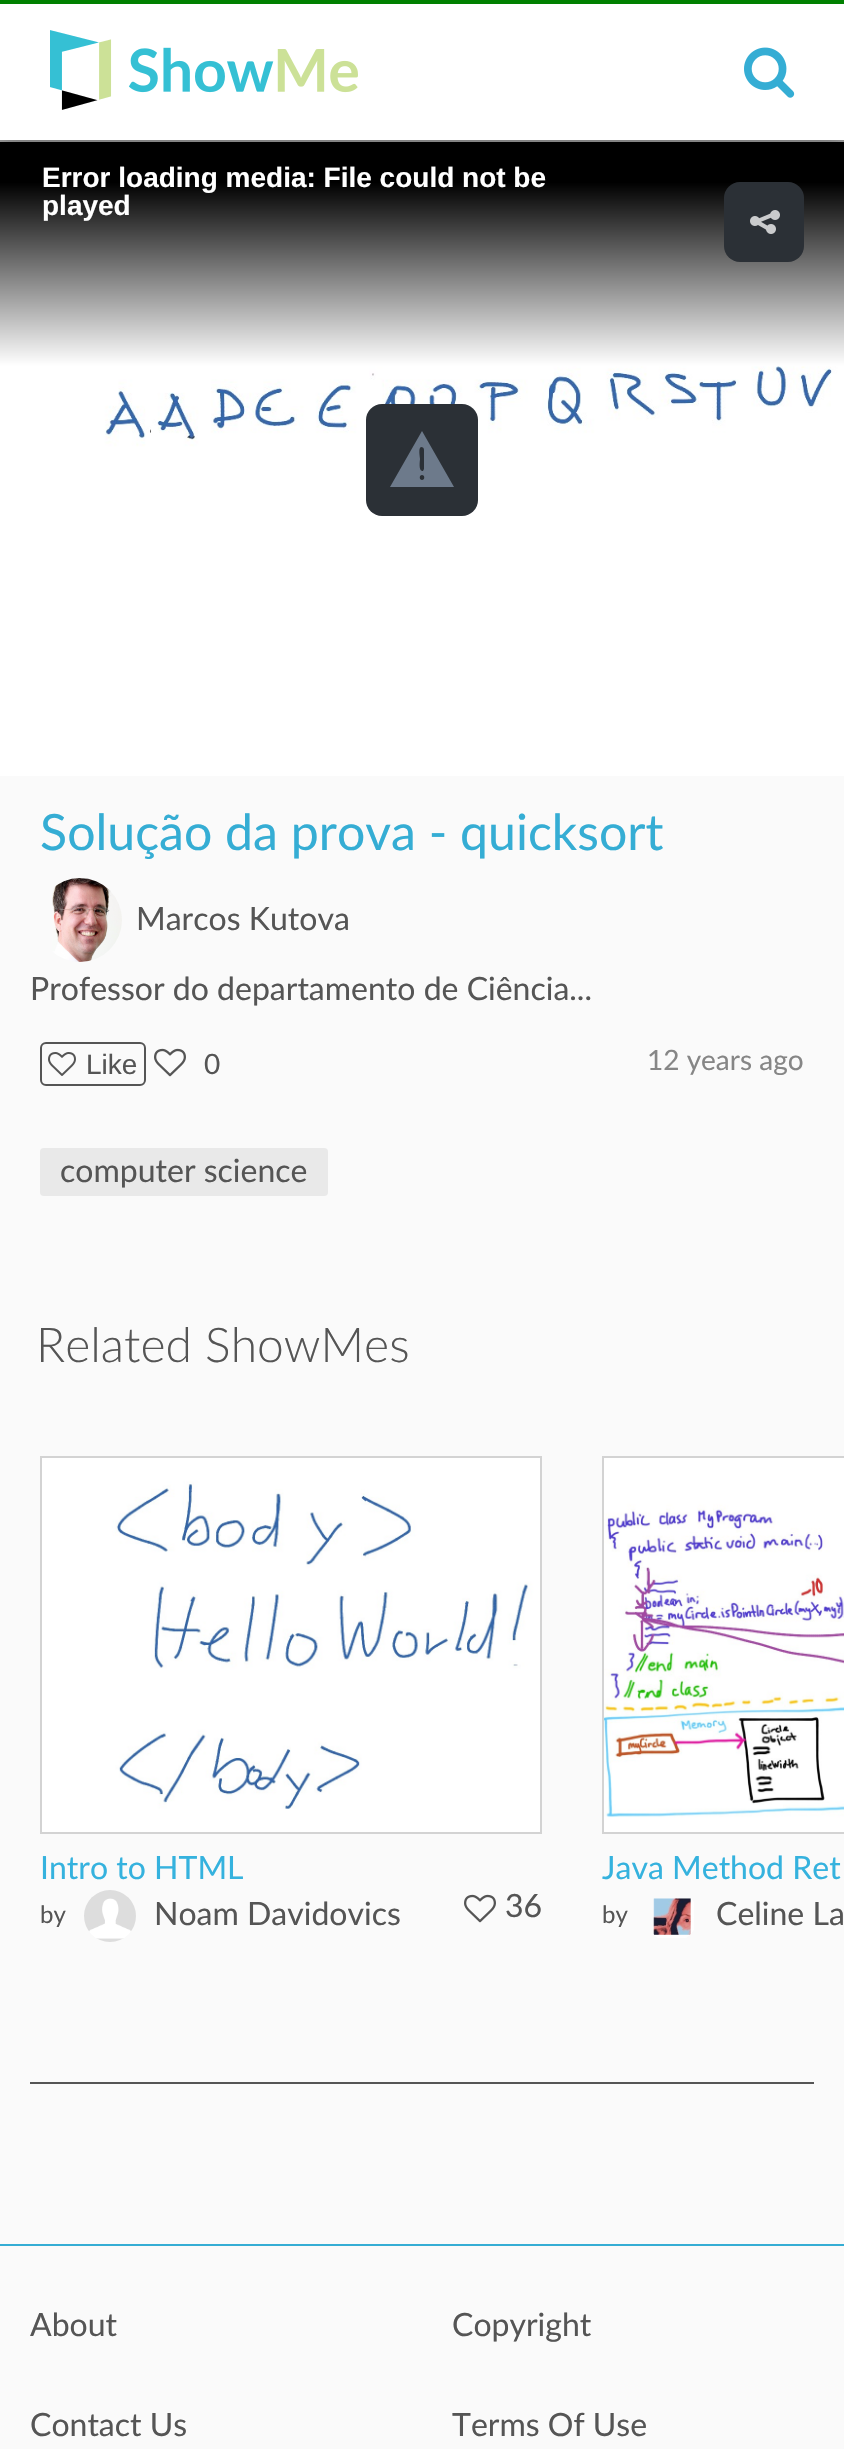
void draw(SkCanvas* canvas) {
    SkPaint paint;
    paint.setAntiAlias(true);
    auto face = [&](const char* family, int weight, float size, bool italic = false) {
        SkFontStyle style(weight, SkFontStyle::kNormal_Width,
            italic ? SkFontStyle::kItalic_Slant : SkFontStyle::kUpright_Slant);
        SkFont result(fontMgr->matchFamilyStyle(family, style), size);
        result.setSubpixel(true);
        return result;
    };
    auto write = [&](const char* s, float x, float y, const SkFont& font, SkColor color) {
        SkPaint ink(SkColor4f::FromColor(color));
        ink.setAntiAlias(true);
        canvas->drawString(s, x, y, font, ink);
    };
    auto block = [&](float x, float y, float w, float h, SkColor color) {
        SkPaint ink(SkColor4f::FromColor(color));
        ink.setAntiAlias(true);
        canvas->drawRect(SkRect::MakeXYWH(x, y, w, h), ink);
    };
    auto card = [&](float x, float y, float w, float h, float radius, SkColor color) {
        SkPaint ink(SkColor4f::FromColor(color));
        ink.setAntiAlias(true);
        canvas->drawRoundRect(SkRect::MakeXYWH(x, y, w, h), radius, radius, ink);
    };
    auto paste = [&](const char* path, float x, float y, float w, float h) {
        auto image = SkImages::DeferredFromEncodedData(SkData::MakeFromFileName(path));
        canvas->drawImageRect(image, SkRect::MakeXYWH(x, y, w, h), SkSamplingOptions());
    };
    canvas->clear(SkColorSetRGB(250, 250, 250));
    block(0, 140, 844, 2, SkColorSetRGB(162, 162, 162));
    paint.setColor(SkColorSetARGB(102, 0, 0, 0));
    paint.setMaskFilter(SkMaskFilter::MakeBlur(kNormal_SkBlurStyle, 10));
    canvas->drawRect(SkRect::MakeXYWH(0, 0, 844, 140), paint);
    paint.setMaskFilter(nullptr);
    block(0, 0, 844, 4, SkColorSetRGB(0, 128, 0));
    block(0, 4, 844, 136, SK_ColorWHITE);
    paste("pic1.png", 50, 30, 308, 80);
    paste("pic2.png", 744, 47, 51, 51);
    {
        const SkColor colors[] = {SK_ColorBLACK, SK_ColorBLACK, SK_ColorWHITE};
        const float stops[] = {0, 0.18f, 1};
        const SkPoint ends[] = {{422, 142}, {422, 366}};
        paint.setShader(SkGradientShader::MakeLinear(ends, colors, stops, 3, SkTileMode::kClamp));
        paint.setAlpha(255);
    }
    canvas->drawRect(SkRect::MakeXYWH(0, 142, 844, 224), paint);
    auto kFont1 = face("Liberation Sans", 700, 28);
    write("Error loading media: File could not be", 42, 187, kFont1, SK_ColorWHITE);
    write("played", 42, 215, kFont1, SK_ColorWHITE);
    card(724, 182, 80, 80, 16, SkColorSetRGB(43, 48, 54));
    paste("pic3.png", 750, 210, 30, 24);
    paste("pic4.png", 0, 366, 844, 410);
    card(366, 404, 112, 112, 16, SkColorSetRGB(43, 48, 54));
    paint.setShader(nullptr);
    paint.setColor(SkColorSetRGB(109, 122, 139));
    canvas->drawPath(SkPathBuilder().moveTo(390, 487).lineTo(422, 431).lineTo(454, 487).close().moveTo(422, 480).cubicTo(425, 480, 425, 475, 422, 475).cubicTo(419, 475, 419, 480, 422, 480).close().moveTo(424, 450).cubicTo(424, 448, 423, 447, 421, 447).cubicTo(418, 448, 420, 457, 420, 459).cubicTo(420, 460, 418, 472, 423, 471).lineTo(424, 469).close().detach(), paint);
    auto kFont2 = face("Lato", 400, 50);
    write("Solução da prova - quicksort", 40, 850, kFont2, SkColorSetRGB(53, 173, 212));
    paste("pic5.png", 52, 878, 70, 84);
    auto kFont3 = face("Lato", 400, 32);
    write("Marcos Kutova", 136, 930, kFont3, SkColorSetRGB(85, 85, 85));
    write("Professor do departamento de Ciência...", 30, 1000, kFont3, SkColorSetRGB(85, 85, 85));
    paint.setStyle(SkPaint::kStroke_Style);
    paint.setStrokeWidth(2);
    paint.setColor(SkColorSetRGB(85, 85, 85));
    canvas->drawRoundRect(SkRect::MakeXYWH(41, 1043, 104, 42), 5, 5, paint);
    paste("pic6.png", 48, 1052, 28, 24);
    auto kFont4 = face("Liberation Sans", 400, 28);
    write("Like", 86, 1074, kFont4, SkColorSetRGB(85, 85, 85));
    paste("pic7.png", 154, 1048, 32, 29);
    auto kFont5 = face("Lato", 400, 28);
    write("0", 204, 1074, kFont5, SkColorSetRGB(85, 85, 85));
    write("12 years ago", 647, 1070, kFont5, SkColorSetRGB(134, 134, 134));
    card(40, 1148, 288, 48, 4, SkColorSetRGB(233, 233, 233));
    write("computer science", 60, 1182, kFont3, SkColorSetRGB(85, 85, 85));
    auto kFont6 = face("Lato", 300, 48);
    write("Related ShowMes", 36, 1362, kFont6, SkColorSetRGB(85, 85, 85));
    paint.setColor(SkColorSetRGB(211, 211, 211));
    canvas->drawRect(SkRect::MakeXYWH(41, 1457, 500, 376), paint);
    paste("pic8.png", 42, 1458, 498, 374);
    write("Intro to HTML", 40, 1879, kFont3, SkColorSetRGB(53, 178, 222));
    auto kFont7 = face("Lato", 400, 24);
    write("by", 40, 1923, kFont7, SkColorSetRGB(85, 85, 85));
    paste("pic9.png", 84, 1890, 52, 52);
    write("Noam Davidovics", 154, 1925, kFont3, SkColorSetRGB(85, 85, 85));
    paste("pic7.png", 464, 1894, 32, 29);
    write("36", 505, 1917, kFont3, SkColorSetRGB(85, 85, 85));
    canvas->drawRect(SkRect::MakeXYWH(603, 1457, 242, 376), paint);
    paste("pic10.png", 604, 1458, 240, 374);
    write("Java Method Ret", 602, 1879, kFont3, SkColorSetRGB(53, 178, 222));
    write("by", 602, 1923, kFont7, SkColorSetRGB(85, 85, 85));
    paste("pic11.png", 653, 1898, 41, 40);
    write("Celine La", 716, 1925, kFont3, SkColorSetRGB(85, 85, 85));
    block(30, 2082, 784, 2, SkColorSetRGB(85, 85, 85));
    block(0, 2244, 844, 2, SkColorSetRGB(53, 173, 212));
    write("About", 30, 2336, kFont3, SkColorSetRGB(85, 85, 85));
    write("Contact Us", 30, 2436, kFont3, SkColorSetRGB(85, 85, 85));
    write("Copyright", 452, 2336, kFont3, SkColorSetRGB(85, 85, 85));
    write("Terms Of Use", 452, 2436, kFont3, SkColorSetRGB(85, 85, 85));
}
